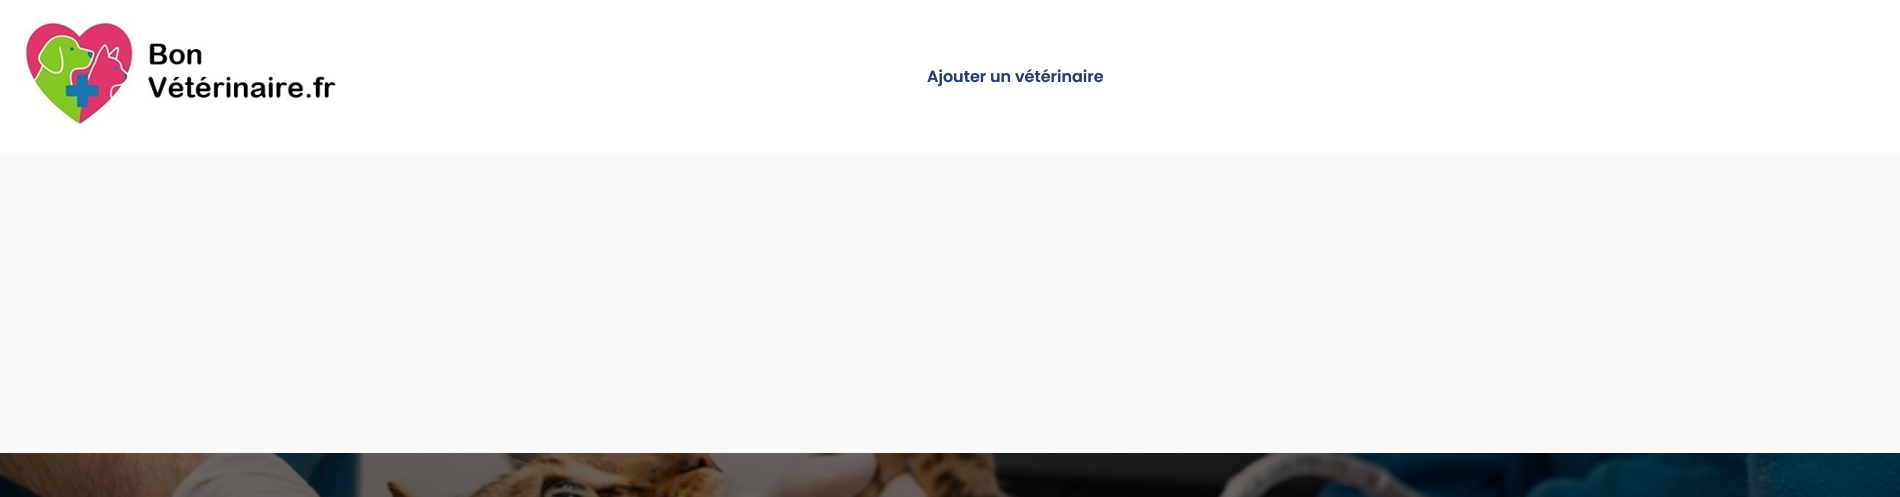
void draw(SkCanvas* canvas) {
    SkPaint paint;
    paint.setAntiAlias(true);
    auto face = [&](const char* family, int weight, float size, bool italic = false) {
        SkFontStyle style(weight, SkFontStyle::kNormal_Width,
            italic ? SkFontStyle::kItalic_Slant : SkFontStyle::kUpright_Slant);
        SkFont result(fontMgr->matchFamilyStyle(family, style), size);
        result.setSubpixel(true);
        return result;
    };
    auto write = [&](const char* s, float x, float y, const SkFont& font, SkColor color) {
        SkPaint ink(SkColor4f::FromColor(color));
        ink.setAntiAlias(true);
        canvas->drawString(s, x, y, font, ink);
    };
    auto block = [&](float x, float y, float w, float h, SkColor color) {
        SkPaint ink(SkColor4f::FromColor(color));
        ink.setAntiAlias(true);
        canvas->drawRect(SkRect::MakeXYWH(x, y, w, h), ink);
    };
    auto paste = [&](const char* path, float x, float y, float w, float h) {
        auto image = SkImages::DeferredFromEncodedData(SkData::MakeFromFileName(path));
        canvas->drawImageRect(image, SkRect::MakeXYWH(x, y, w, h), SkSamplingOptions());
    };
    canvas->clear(SkColorSetRGB(249, 249, 249));
    block(0, 0, 1900, 153, SK_ColorWHITE);
    paste("pic1.png", 20, 15, 316, 114);
    auto kFont1 = face("Poppins", 600, 16);
    write("Ajouter un vétérinaire", 927, 82, kFont1, SkColorSetRGB(42, 55, 117));
    paste("pic2.png", 0, 453, 1900, 44);
}
